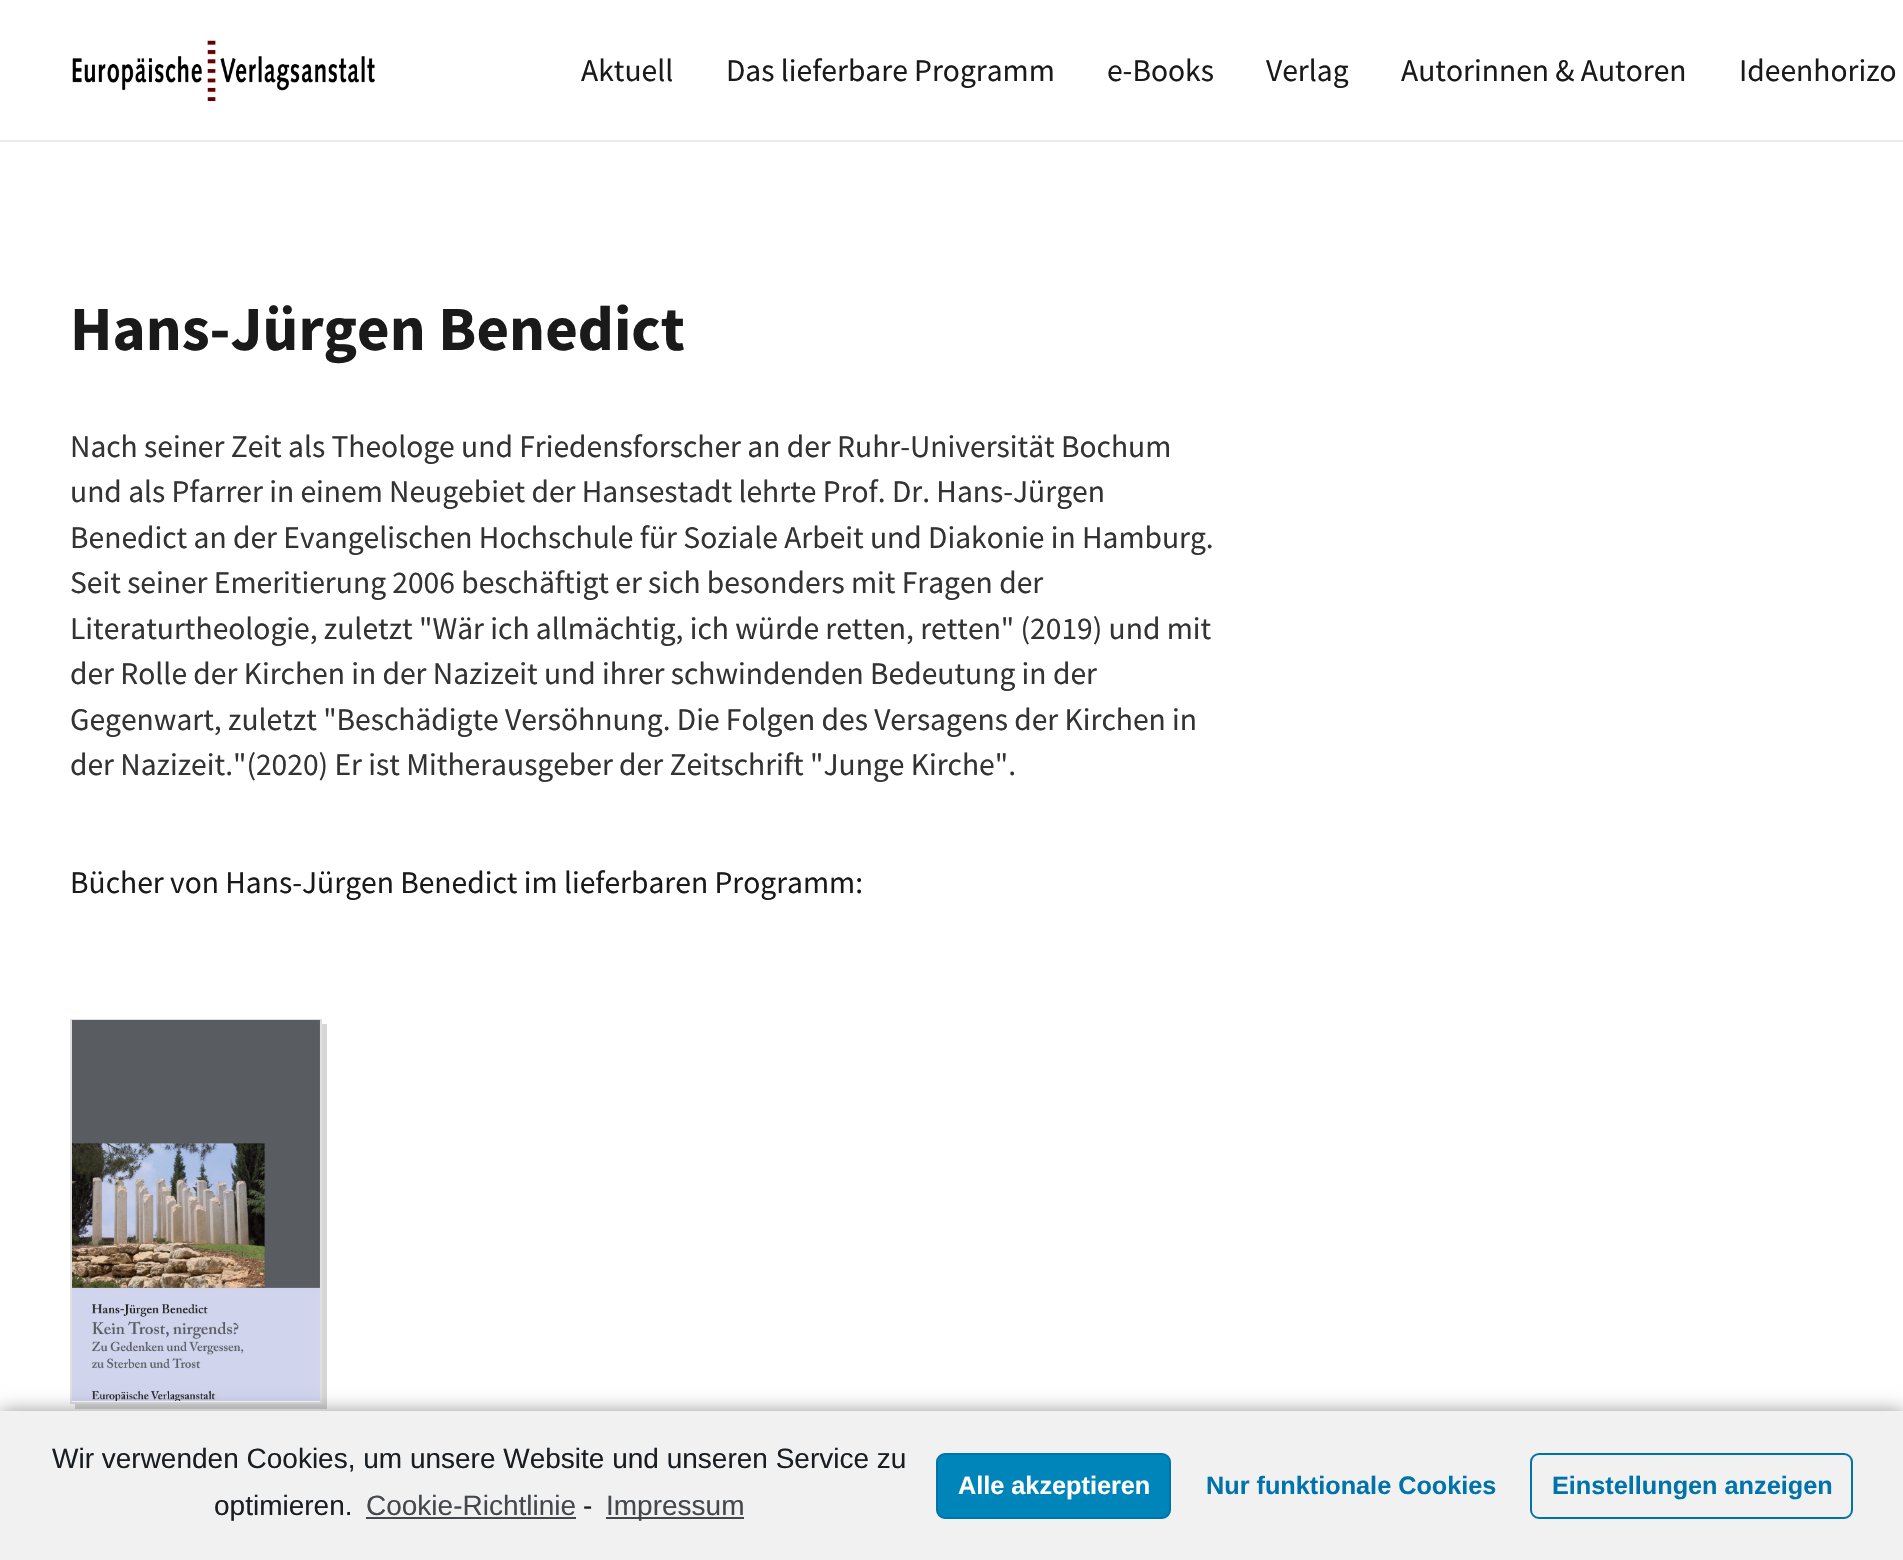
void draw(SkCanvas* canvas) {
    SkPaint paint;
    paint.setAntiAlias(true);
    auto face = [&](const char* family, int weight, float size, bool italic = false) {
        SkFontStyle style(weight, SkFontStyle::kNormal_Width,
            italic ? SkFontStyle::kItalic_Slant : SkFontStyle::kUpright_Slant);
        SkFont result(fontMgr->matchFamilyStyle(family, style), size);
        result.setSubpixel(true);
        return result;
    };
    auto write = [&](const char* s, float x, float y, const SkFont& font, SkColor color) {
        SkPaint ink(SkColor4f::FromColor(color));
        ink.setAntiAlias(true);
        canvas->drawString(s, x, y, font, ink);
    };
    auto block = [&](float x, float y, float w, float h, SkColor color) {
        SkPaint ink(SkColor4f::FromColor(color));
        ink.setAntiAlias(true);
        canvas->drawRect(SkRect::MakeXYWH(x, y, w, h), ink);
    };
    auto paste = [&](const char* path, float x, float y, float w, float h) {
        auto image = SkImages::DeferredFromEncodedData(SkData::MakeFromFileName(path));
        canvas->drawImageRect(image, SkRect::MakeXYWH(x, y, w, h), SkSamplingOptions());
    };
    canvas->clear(SK_ColorWHITE);
    block(0, 140, 1903, 2, SkColorSetRGB(235, 235, 235));
    paste("pic1.png", 72, 40, 303, 61);
    auto kFont1 = face("Source Sans Pro", 400, 31.5f);
    write("Aktuell", 581, 81, kFont1, SkColorSetRGB(26, 26, 26));
    write("Das lieferbare Programm", 726, 81, kFont1, SkColorSetRGB(26, 26, 26));
    write("e-Books", 1107, 81, kFont1, SkColorSetRGB(26, 26, 26));
    write("Verlag", 1266, 81, kFont1, SkColorSetRGB(26, 26, 26));
    write("Autorinnen & Autoren", 1401, 81, kFont1, SkColorSetRGB(26, 26, 26));
    write("Ideenhorizo", 1739, 81, kFont1, SkColorSetRGB(26, 26, 26));
    auto kFont2 = face("Source Sans Pro", 700, 63);
    write("Hans-Jürgen Benedict", 70, 350, kFont2, SkColorSetRGB(26, 26, 26));
    write("Nach seiner Zeit als Theologe und Friedensforscher an der Ruhr-Universität Bochum", 70, 457, kFont1, SkColorSetRGB(51, 51, 51));
    write("und als Pfarrer in einem Neugebiet der Hansestadt lehrte Prof. Dr. Hans-Jürgen", 70, 502, kFont1, SkColorSetRGB(51, 51, 51));
    write("Benedict an der Evangelischen Hochschule für Soziale Arbeit und Diakonie in Hamburg.", 70, 548, kFont1, SkColorSetRGB(51, 51, 51));
    write("Seit seiner Emeritierung 2006 beschäftigt er sich besonders mit Fragen der", 70, 593, kFont1, SkColorSetRGB(51, 51, 51));
    write("Literaturtheologie, zuletzt \"Wär ich allmächtig, ich würde retten, retten\" (2019) und mit", 70, 639, kFont1, SkColorSetRGB(51, 51, 51));
    write("der Rolle der Kirchen in der Nazizeit und ihrer schwindenden Bedeutung in der", 70, 684, kFont1, SkColorSetRGB(51, 51, 51));
    write("Gegenwart, zuletzt \"Beschädigte Versöhnung. Die Folgen des Versagens der Kirchen in", 70, 730, kFont1, SkColorSetRGB(51, 51, 51));
    write("der Nazizeit.\"(2020) Er ist Mitherausgeber der Zeitschrift \"Junge Kirche\".", 70, 775, kFont1, SkColorSetRGB(51, 51, 51));
    write("Bücher von Hans-Jürgen Benedict im lieferbaren Programm:", 70, 893, kFont1, SkColorSetRGB(26, 26, 26));
    paint.setColor(SkColorSetRGB(214, 214, 214));
    canvas->drawPath(SkPathBuilder().moveTo(75, 1404).lineTo(75, 1409).lineTo(327, 1409).lineTo(327, 1024).lineTo(322, 1024).lineTo(322, 1404).close().detach(), paint);
    paint.setStyle(SkPaint::kStroke_Style);
    paint.setStrokeWidth(2);
    paint.setColor(SkColorSetRGB(224, 224, 224));
    canvas->drawRect(SkRect::MakeXYWH(71, 1020, 250, 383), paint);
    paste("pic2.png", 72, 1020, 248, 381);
    paint.setStyle(SkPaint::kFill_Style);
    paint.setColor(SkColorSetARGB(102, 0, 0, 0));
    paint.setMaskFilter(SkMaskFilter::MakeBlur(kNormal_SkBlurStyle, 9));
    canvas->drawRect(SkRect::MakeXYWH(0, 1411, 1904, 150), paint);
    paint.setMaskFilter(nullptr);
    block(0, 1411, 1903, 149, SkColorSetRGB(241, 241, 241));
    auto kFont3 = face("Liberation Sans", 400, 28);
    write("Wir verwenden Cookies, um unsere Website und unseren Service zu", 52, 1468, kFont3, SkColorSetRGB(25, 30, 35));
    write("optimieren.", 214, 1515, kFont3, SkColorSetRGB(25, 30, 35));
    write("Cookie-Richtlinie", 366, 1515, kFont3, SkColorSetRGB(68, 72, 76));
    block(366, 1517, 210, 2, SkColorSetRGB(68, 72, 76));
    write("-", 583, 1515, kFont3, SkColorSetRGB(25, 30, 35));
    block(606, 1517, 138, 2, SkColorSetRGB(68, 72, 76));
    write("Impressum", 606, 1515, kFont3, SkColorSetRGB(68, 72, 76));
    paint.setColor(SkColorSetRGB(0, 133, 186));
    canvas->drawRoundRect(SkRect::MakeXYWH(937, 1454, 233, 64), 8, 8, paint);
    paint.setStyle(SkPaint::kStroke_Style);
    paint.setColor(SkColorSetRGB(0, 115, 170));
    canvas->drawRoundRect(SkRect::MakeXYWH(937, 1454, 233, 64), 8, 8, paint);
    auto kFont4 = face("Liberation Sans", 700, 25.25f);
    write("Alle akzeptieren", 958, 1494, kFont4, SK_ColorWHITE);
    write("Nur funktionale Cookies", 1206, 1494, kFont4, SkColorSetRGB(0, 115, 170));
    canvas->drawRoundRect(SkRect::MakeXYWH(1531, 1454, 321, 64), 8, 8, paint);
    write("Einstellungen anzeigen", 1552, 1494, kFont4, SkColorSetRGB(0, 115, 170));
}
